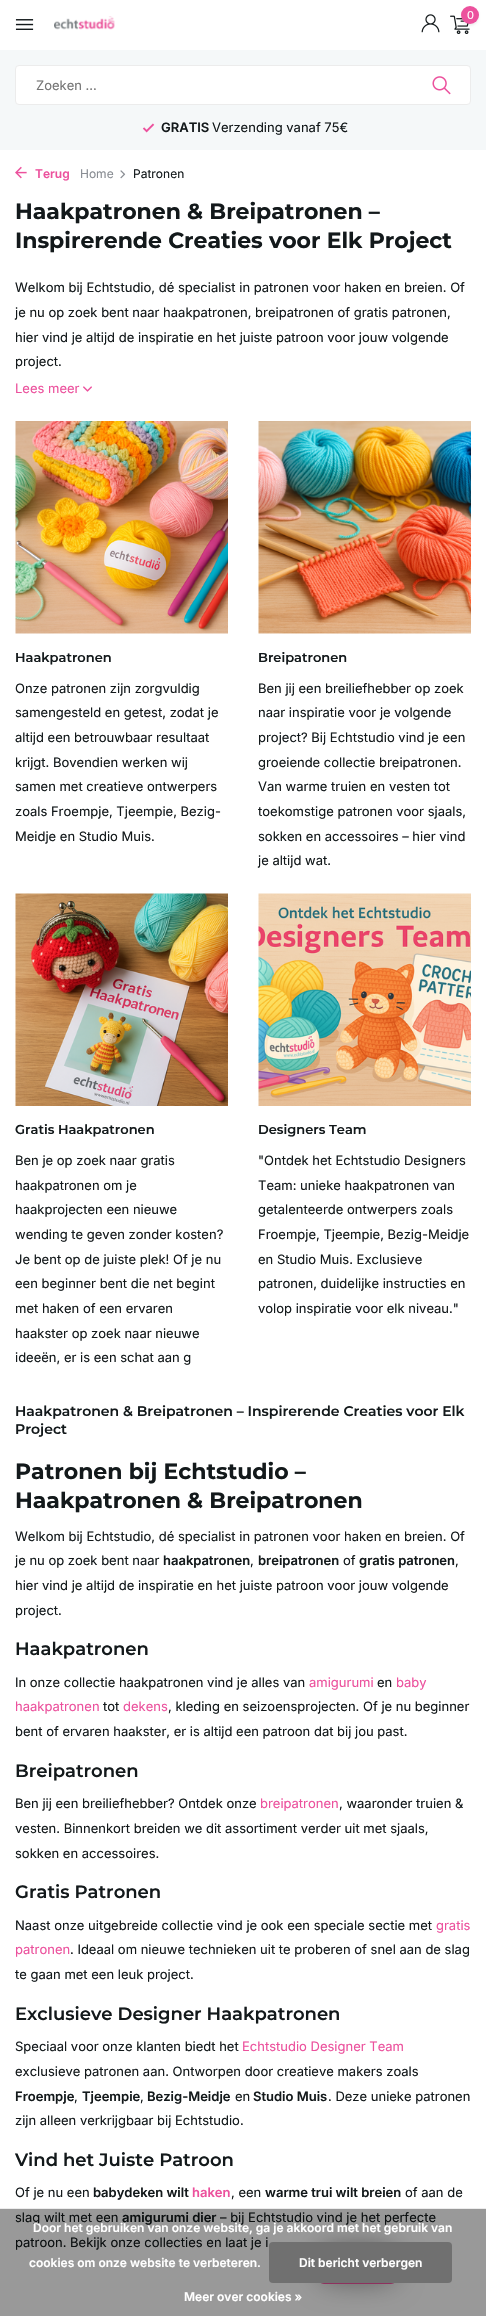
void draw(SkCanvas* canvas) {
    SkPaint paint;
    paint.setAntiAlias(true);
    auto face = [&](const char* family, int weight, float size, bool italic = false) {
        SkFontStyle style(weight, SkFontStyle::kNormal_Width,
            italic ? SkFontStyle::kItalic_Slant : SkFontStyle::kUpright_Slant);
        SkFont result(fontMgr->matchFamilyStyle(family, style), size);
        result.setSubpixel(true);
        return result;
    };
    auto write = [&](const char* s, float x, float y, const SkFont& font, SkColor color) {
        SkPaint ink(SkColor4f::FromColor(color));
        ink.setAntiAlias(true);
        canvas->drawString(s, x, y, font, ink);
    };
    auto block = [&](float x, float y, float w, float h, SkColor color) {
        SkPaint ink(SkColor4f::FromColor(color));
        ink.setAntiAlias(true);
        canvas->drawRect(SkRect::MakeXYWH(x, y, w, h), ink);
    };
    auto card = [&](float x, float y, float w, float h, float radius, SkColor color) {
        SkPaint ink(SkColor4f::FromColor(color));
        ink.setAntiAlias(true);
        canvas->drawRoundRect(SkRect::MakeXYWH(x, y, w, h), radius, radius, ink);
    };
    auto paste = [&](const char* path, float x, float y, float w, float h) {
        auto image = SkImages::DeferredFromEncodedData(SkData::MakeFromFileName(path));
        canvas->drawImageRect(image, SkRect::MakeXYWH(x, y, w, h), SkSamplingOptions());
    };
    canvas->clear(SK_ColorWHITE);
    block(0, 2209, 486, 107, SkColorSetRGB(153, 153, 153));
    paste("pic1.png", 421, 14, 19, 19);
    paste("pic2.png", 450, 15, 20, 19);
    paint.setColor(SkColorSetARGB(15, 0, 0, 0));
    paint.setMaskFilter(SkMaskFilter::MakeBlur(kNormal_SkBlurStyle, 1));
    canvas->drawRoundRect(SkRect::MakeXYWH(461, 8, 18, 18), 9, 9, paint);
    paint.setMaskFilter(nullptr);
    paint.setColor(SkColorSetRGB(236, 81, 157));
    canvas->drawCircle(470, 15, 9, paint);
    auto kFont1 = face("Inter", 400, 11);
    write("0", 467, 19, kFont1, SK_ColorWHITE);
    paste("pic3.png", 15, 19, 19, 11);
    paste("pic4.png", 54, 16, 61, 14);
    block(0, 50, 486, 100, SkColorSetRGB(245, 248, 249));
    paint.setColor(SK_ColorWHITE);
    canvas->drawRoundRect(SkRect::MakeXYWH(15.5f, 65.5f, 455, 39), 3.5f, 3.5f, paint);
    paint.setStyle(SkPaint::kStroke_Style);
    paint.setStrokeWidth(1);
    paint.setColor(SkColorSetRGB(236, 236, 236));
    canvas->drawRoundRect(SkRect::MakeXYWH(15.5f, 65.5f, 455, 39), 3.5f, 3.5f, paint);
    auto kFont2 = face("Inter", 400, 13);
    write("Zoeken ...", 36, 90, kFont2, SkColorSetRGB(117, 117, 117));
    paste("pic5.png", 432, 76, 19, 19);
    paste("pic6.png", 142, 123, 13, 10);
    auto kFont3 = face("Inter", 600, 13);
    write("GRATIS", 161, 132, kFont3, SkColorSetRGB(19, 25, 27));
    write("Verzending vanaf 75€", 212, 132, kFont2, SkColorSetRGB(19, 25, 27));
    paste("pic7.png", 15, 166, 12, 13);
    auto kFont4 = face("Inter", 600, 12);
    write("Terug", 35, 178, kFont4, SkColorSetRGB(236, 81, 157));
    auto kFont5 = face("Inter", 400, 12);
    write("Home", 80, 178, kFont5, SkColorSetRGB(137, 141, 147));
    paste("pic8.png", 120, 170, 6, 9);
    write("Patronen", 133, 178, kFont5, SkColorSetRGB(19, 25, 27));
    auto kFont6 = face("Montserrat", 700, 22);
    write("Haakpatronen & Breipatronen –", 15, 219, kFont6, SkColorSetRGB(19, 25, 27));
    write("Inspirerende Creaties voor Elk Project", 15, 248, kFont6, SkColorSetRGB(19, 25, 27));
    write("Welkom bij Echtstudio, dé specialist in patronen voor haken en breien. Of", 15, 292, kFont2, SkColorSetRGB(19, 25, 27));
    write("je nu op zoek bent naar haakpatronen, breipatronen of gratis patronen,", 15, 317, kFont2, SkColorSetRGB(19, 25, 27));
    write("hier vind je altijd de inspiratie en het juiste patroon voor jouw volgende", 15, 342, kFont2, SkColorSetRGB(19, 25, 27));
    write("project.", 15, 366, kFont2, SkColorSetRGB(19, 25, 27));
    write("Lees meer", 15, 393, kFont2, SkColorSetRGB(236, 81, 157));
    paste("pic9.png", 83, 386, 9, 6);
    paste("pic10.png", 15, 421, 213, 213);
    auto kFont7 = face("Montserrat", 600, 13);
    write("Haakpatronen", 15, 662, kFont7, SkColorSetRGB(19, 25, 27));
    write("Onze patronen zijn zorgvuldig", 15, 693, kFont2, SkColorSetRGB(19, 25, 27));
    write("samengesteld en getest, zodat je", 15, 717, kFont2, SkColorSetRGB(19, 25, 27));
    write("altijd een betrouwbaar resultaat", 15, 742, kFont2, SkColorSetRGB(19, 25, 27));
    write("krijgt. Bovendien werken wij", 15, 767, kFont2, SkColorSetRGB(19, 25, 27));
    write("samen met creatieve ontwerpers", 15, 791, kFont2, SkColorSetRGB(19, 25, 27));
    write("zoals Froempje, Tjeempie, Bezig-", 15, 816, kFont2, SkColorSetRGB(19, 25, 27));
    write("Meidje en Studio Muis.", 15, 841, kFont2, SkColorSetRGB(19, 25, 27));
    paste("pic11.png", 258, 421, 213, 213);
    write("Breipatronen", 258, 662, kFont7, SkColorSetRGB(19, 25, 27));
    write("Ben jij een breiliefhebber op zoek", 258, 693, kFont2, SkColorSetRGB(19, 25, 27));
    write("naar inspiratie voor je volgende", 258, 717, kFont2, SkColorSetRGB(19, 25, 27));
    write("project? Bij Echtstudio vind je een", 258, 742, kFont2, SkColorSetRGB(19, 25, 27));
    write("groeiende collectie breipatronen.", 258, 767, kFont2, SkColorSetRGB(19, 25, 27));
    write("Van warme truien en vesten tot", 258, 791, kFont2, SkColorSetRGB(19, 25, 27));
    write("toekomstige patronen voor sjaals,", 258, 816, kFont2, SkColorSetRGB(19, 25, 27));
    write("sokken en accessoires – hier vind", 258, 841, kFont2, SkColorSetRGB(19, 25, 27));
    write("je altijd wat.", 258, 865, kFont2, SkColorSetRGB(19, 25, 27));
    paste("pic12.png", 15, 893, 213, 213);
    write("Gratis Haakpatronen", 15, 1134, kFont7, SkColorSetRGB(19, 25, 27));
    write("Ben je op zoek naar gratis", 15, 1165, kFont2, SkColorSetRGB(19, 25, 27));
    write("haakpatronen om je", 15, 1190, kFont2, SkColorSetRGB(19, 25, 27));
    write("haakprojecten een nieuwe", 15, 1214, kFont2, SkColorSetRGB(19, 25, 27));
    write("wending te geven zonder kosten?", 15, 1239, kFont2, SkColorSetRGB(19, 25, 27));
    write("Je bent op de juiste plek! Of je nu", 15, 1264, kFont2, SkColorSetRGB(19, 25, 27));
    write("een beginner bent die net begint", 15, 1288, kFont2, SkColorSetRGB(19, 25, 27));
    write("met haken of een ervaren", 15, 1313, kFont2, SkColorSetRGB(19, 25, 27));
    write("haakster op zoek naar nieuwe", 15, 1338, kFont2, SkColorSetRGB(19, 25, 27));
    write("ideeën, er is een schat aan g", 15, 1362, kFont2, SkColorSetRGB(19, 25, 27));
    paste("pic13.png", 258, 893, 213, 213);
    write("Designers Team", 258, 1134, kFont7, SkColorSetRGB(19, 25, 27));
    write("\"Ontdek het Echtstudio Designers", 258, 1165, kFont2, SkColorSetRGB(19, 25, 27));
    write("Team: unieke haakpatronen van", 258, 1190, kFont2, SkColorSetRGB(19, 25, 27));
    write("getalenteerde ontwerpers zoals", 258, 1214, kFont2, SkColorSetRGB(19, 25, 27));
    write("Froempje, Tjeempie, Bezig-Meidje", 258, 1239, kFont2, SkColorSetRGB(19, 25, 27));
    write("en Studio Muis. Exclusieve", 258, 1264, kFont2, SkColorSetRGB(19, 25, 27));
    write("patronen, duidelijke instructies en", 258, 1288, kFont2, SkColorSetRGB(19, 25, 27));
    write("volop inspiratie voor elk niveau.\"", 258, 1313, kFont2, SkColorSetRGB(19, 25, 27));
    auto kFont8 = face("Montserrat", 600, 14);
    write("Haakpatronen & Breipatronen – Inspirerende Creaties voor Elk", 15, 1416, kFont8, SkColorSetRGB(19, 25, 27));
    write("Project", 15, 1434, kFont8, SkColorSetRGB(19, 25, 27));
    write("Patronen bij Echtstudio –", 15, 1479, kFont6, SkColorSetRGB(19, 25, 27));
    write("Haakpatronen & Breipatronen", 15, 1508, kFont6, SkColorSetRGB(19, 25, 27));
    write("Welkom bij Echtstudio, dé specialist in patronen voor haken en breien. Of", 15, 1541, kFont2, SkColorSetRGB(19, 25, 27));
    write("je nu op zoek bent naar", 15, 1565, kFont2, SkColorSetRGB(19, 25, 27));
    write("haakpatronen", 163, 1565, kFont3, SkColorSetRGB(19, 25, 27));
    write(",", 250, 1565, kFont2, SkColorSetRGB(19, 25, 27));
    write("breipatronen", 258, 1565, kFont3, SkColorSetRGB(19, 25, 27));
    write("of", 343, 1565, kFont2, SkColorSetRGB(19, 25, 27));
    write("gratis patronen", 359, 1565, kFont3, SkColorSetRGB(19, 25, 27));
    write(",", 455, 1565, kFont2, SkColorSetRGB(19, 25, 27));
    write("hier vind je altijd de inspiratie en het juiste patroon voor jouw volgende", 15, 1590, kFont2, SkColorSetRGB(19, 25, 27));
    write("project.", 15, 1615, kFont2, SkColorSetRGB(19, 25, 27));
    auto kFont9 = face("Montserrat", 600, 18);
    write("Haakpatronen", 15, 1655, kFont9, SkColorSetRGB(19, 25, 27));
    write("In onze collectie haakpatronen vind je alles van", 15, 1687, kFont2, SkColorSetRGB(19, 25, 27));
    write("amigurumi", 309, 1687, kFont2, SkColorSetRGB(236, 81, 157));
    write("en", 377, 1687, kFont2, SkColorSetRGB(19, 25, 27));
    write("baby", 396, 1687, kFont2, SkColorSetRGB(236, 81, 157));
    write("haakpatronen", 15, 1711, kFont2, SkColorSetRGB(236, 81, 157));
    write("tot", 103, 1711, kFont2, SkColorSetRGB(19, 25, 27));
    write("dekens", 123, 1711, kFont2, SkColorSetRGB(236, 81, 157));
    write(", kleding en seizoensprojecten. Of je nu beginner", 168, 1711, kFont2, SkColorSetRGB(19, 25, 27));
    write("bent of ervaren haakster, er is altijd een patroon dat bij jou past.", 15, 1736, kFont2, SkColorSetRGB(19, 25, 27));
    write("Breipatronen", 15, 1777, kFont9, SkColorSetRGB(19, 25, 27));
    write("Ben jij een breiliefhebber? Ontdek onze", 15, 1808, kFont2, SkColorSetRGB(19, 25, 27));
    write("breipatronen", 260, 1808, kFont2, SkColorSetRGB(236, 81, 157));
    write(", waaronder truien &", 339, 1808, kFont2, SkColorSetRGB(19, 25, 27));
    write("vesten. Binnenkort breiden we dit assortiment verder uit met sjaals,", 15, 1833, kFont2, SkColorSetRGB(19, 25, 27));
    write("sokken en accessoires.", 15, 1858, kFont2, SkColorSetRGB(19, 25, 27));
    write("Gratis Patronen", 15, 1898, kFont9, SkColorSetRGB(19, 25, 27));
    write("Naast onze uitgebreide collectie vind je ook een speciale sectie met", 15, 1930, kFont2, SkColorSetRGB(19, 25, 27));
    write("gratis", 436, 1930, kFont2, SkColorSetRGB(236, 81, 157));
    write("patronen", 15, 1954, kFont2, SkColorSetRGB(236, 81, 157));
    write(". Ideaal om nieuwe technieken uit te proberen of snel aan de slag", 70, 1954, kFont2, SkColorSetRGB(19, 25, 27));
    write("te gaan met een leuk project.", 15, 1979, kFont2, SkColorSetRGB(19, 25, 27));
    write("Exclusieve Designer Haakpatronen", 15, 2020, kFont9, SkColorSetRGB(19, 25, 27));
    write("Speciaal voor onze klanten biedt het", 15, 2051, kFont2, SkColorSetRGB(19, 25, 27));
    write("Echtstudio Designer Team", 242, 2051, kFont2, SkColorSetRGB(236, 81, 157));
    write("exclusieve patronen aan. Ontworpen door creatieve makers zoals", 15, 2076, kFont2, SkColorSetRGB(19, 25, 27));
    write("Froempje", 15, 2101, kFont3, SkColorSetRGB(19, 25, 27));
    write(",", 74, 2101, kFont2, SkColorSetRGB(19, 25, 27));
    write("Tjeempie", 82, 2101, kFont3, SkColorSetRGB(19, 25, 27));
    write(",", 140, 2101, kFont2, SkColorSetRGB(19, 25, 27));
    write("Bezig-Meidje", 147, 2101, kFont3, SkColorSetRGB(19, 25, 27));
    write("en", 235, 2101, kFont2, SkColorSetRGB(19, 25, 27));
    write("Studio Muis", 253, 2101, kFont3, SkColorSetRGB(19, 25, 27));
    write(". Deze unieke patronen", 328, 2101, kFont2, SkColorSetRGB(19, 25, 27));
    write("zijn alleen verkrijgbaar bij Echtstudio.", 15, 2125, kFont2, SkColorSetRGB(19, 25, 27));
    write("Vind het Juiste Patroon", 15, 2166, kFont9, SkColorSetRGB(19, 25, 27));
    write("Of je nu een", 15, 2197, kFont2, SkColorSetRGB(19, 25, 27));
    write("babydeken wilt", 93, 2197, kFont3, SkColorSetRGB(19, 25, 27));
    write("haken", 192, 2197, kFont3, SkColorSetRGB(236, 81, 157));
    write(", een", 231, 2197, kFont2, SkColorSetRGB(19, 25, 27));
    write("warme trui wilt breien", 265, 2197, kFont3, SkColorSetRGB(19, 25, 27));
    write("of aan de", 405, 2197, kFont2, SkColorSetRGB(19, 25, 27));
    write("slag wilt met een", 15, 2222, kFont2, SkColorSetRGB(11, 15, 16));
    write("amigurumi dier", 122, 2222, kFont3, SkColorSetRGB(11, 15, 16));
    write("– bij Echtstudio vind je het perfecte", 220, 2222, kFont2, SkColorSetRGB(11, 15, 16));
    write("patroon. Bekijk onze collecties en laat je i", 15, 2247, kFont2, SkColorSetRGB(11, 15, 16));
    paint.setStyle(SkPaint::kFill_Style);
    paint.setColor(SkColorSetARGB(128, 0, 0, 0));
    paint.setMaskFilter(SkMaskFilter::MakeBlur(kNormal_SkBlurStyle, 15));
    canvas->drawRoundRect(SkRect::MakeXYWH(323, 2249, 69, 30), 1, 1, paint);
    paint.setMaskFilter(nullptr);
    card(318, 2244, 79, 40, 6, SkColorSetRGB(142, 49, 94));
    block(0, 2208, 486, 1, SkColorSetRGB(236, 236, 236));
    write("Door het gebruiken van onze website, ga je akkoord met het gebruik van", 33, 2232, kFont4, SK_ColorWHITE);
    write("cookies om onze website te verbeteren.", 29, 2267, kFont4, SK_ColorWHITE);
    card(269, 2242, 183, 41, 4, SkColorSetRGB(112, 112, 112));
    write("Dit bericht verbergen", 299, 2267, kFont4, SK_ColorWHITE);
    write("Meer over cookies »", 184, 2301, kFont4, SK_ColorWHITE);
}
